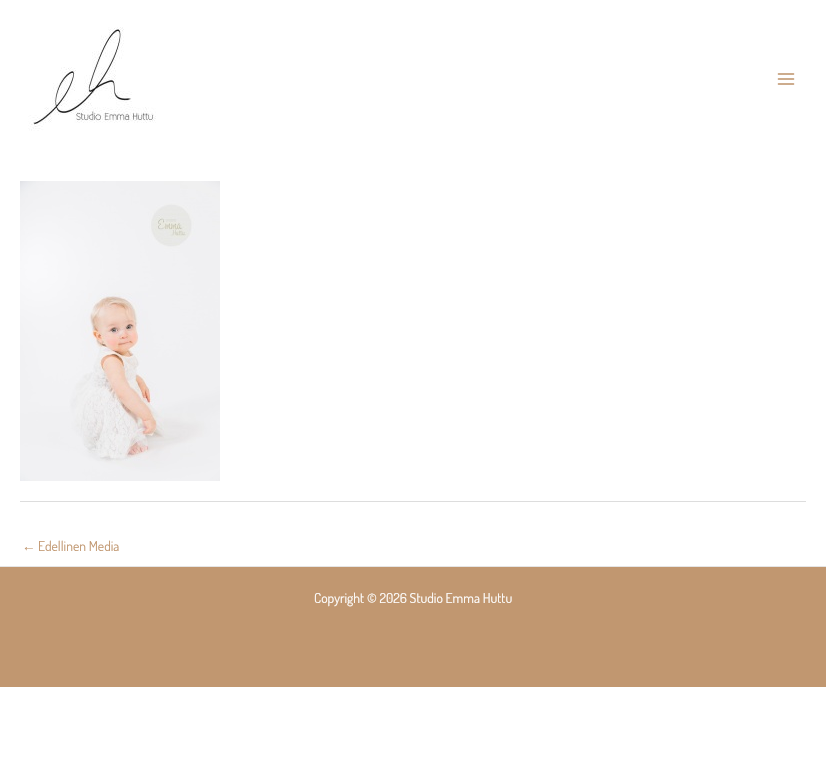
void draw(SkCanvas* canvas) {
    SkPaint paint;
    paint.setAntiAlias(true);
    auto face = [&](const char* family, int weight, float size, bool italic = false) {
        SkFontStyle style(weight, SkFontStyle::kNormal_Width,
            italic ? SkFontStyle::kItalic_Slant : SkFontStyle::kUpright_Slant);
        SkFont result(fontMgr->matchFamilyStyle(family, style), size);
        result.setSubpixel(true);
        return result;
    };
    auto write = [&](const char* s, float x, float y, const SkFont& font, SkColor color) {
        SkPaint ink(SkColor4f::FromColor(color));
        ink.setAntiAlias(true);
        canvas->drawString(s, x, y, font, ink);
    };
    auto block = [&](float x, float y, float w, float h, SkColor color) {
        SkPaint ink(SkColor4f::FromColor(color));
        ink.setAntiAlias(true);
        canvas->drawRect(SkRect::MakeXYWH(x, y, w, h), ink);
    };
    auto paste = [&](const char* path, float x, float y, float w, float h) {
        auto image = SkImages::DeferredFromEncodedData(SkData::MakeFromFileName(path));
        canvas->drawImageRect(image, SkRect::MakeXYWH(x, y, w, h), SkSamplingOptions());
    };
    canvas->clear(SK_ColorWHITE);
    paste("pic1.png", 28, 27, 128, 104);
    paste("pic2.png", 777, 73, 18, 12);
    paste("pic3.png", 20, 181, 200, 300);
    block(20, 501, 786, 1, SkColorSetRGB(221, 221, 221));
    auto kFont1 = face("Liberation Sans", 400, 13.7f);
    write("←", 22, 551, kFont1, SkColorSetRGB(193, 151, 112));
    auto kFont2 = face("Dosis", 400, 13.7f);
    write("Edellinen Media", 38, 551, kFont2, SkColorSetRGB(193, 151, 112));
    block(0, 567, 826, 120, SkColorSetRGB(193, 151, 112));
    block(0, 566, 826, 1, SkColorSetRGB(229, 229, 229));
    write("Copyright © 2026 Studio Emma Huttu", 314, 603, kFont2, SK_ColorWHITE);
}
